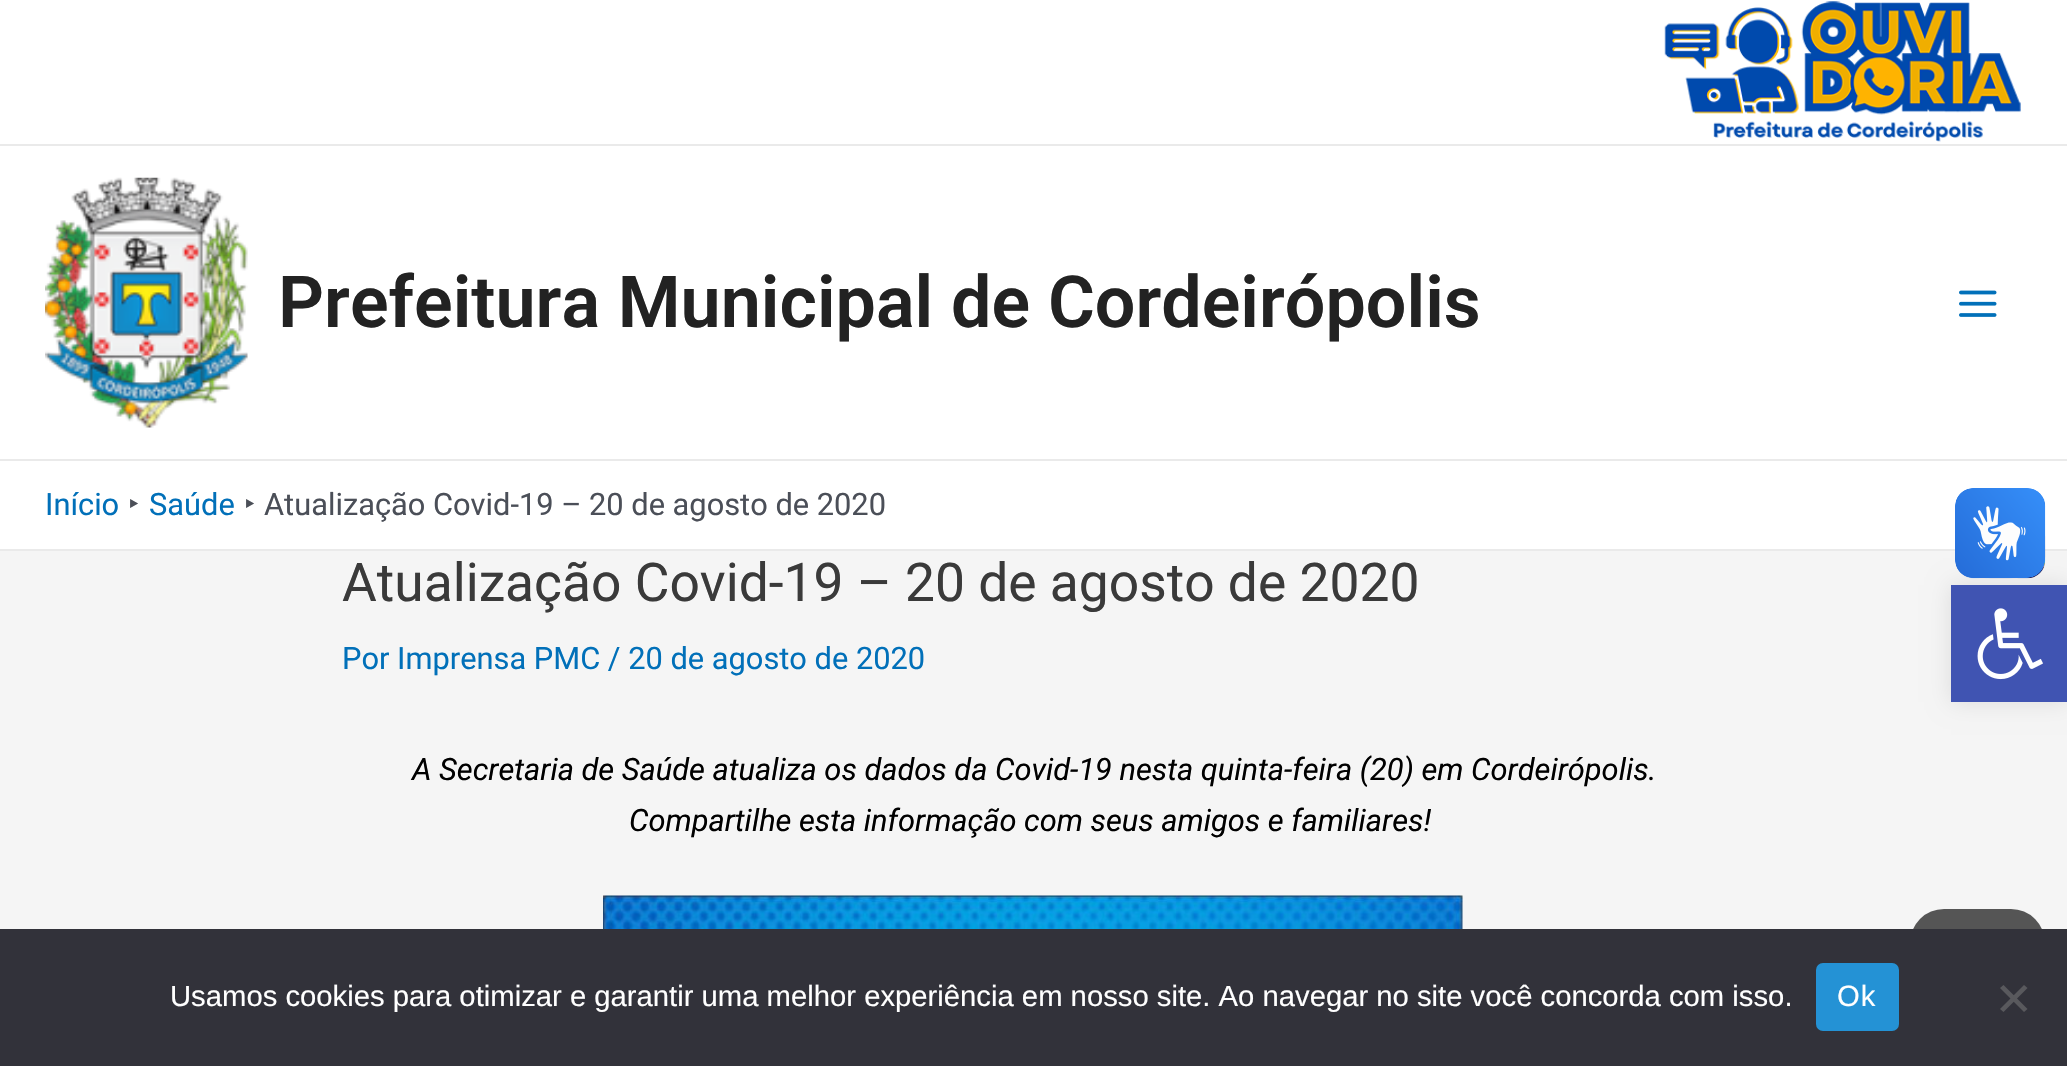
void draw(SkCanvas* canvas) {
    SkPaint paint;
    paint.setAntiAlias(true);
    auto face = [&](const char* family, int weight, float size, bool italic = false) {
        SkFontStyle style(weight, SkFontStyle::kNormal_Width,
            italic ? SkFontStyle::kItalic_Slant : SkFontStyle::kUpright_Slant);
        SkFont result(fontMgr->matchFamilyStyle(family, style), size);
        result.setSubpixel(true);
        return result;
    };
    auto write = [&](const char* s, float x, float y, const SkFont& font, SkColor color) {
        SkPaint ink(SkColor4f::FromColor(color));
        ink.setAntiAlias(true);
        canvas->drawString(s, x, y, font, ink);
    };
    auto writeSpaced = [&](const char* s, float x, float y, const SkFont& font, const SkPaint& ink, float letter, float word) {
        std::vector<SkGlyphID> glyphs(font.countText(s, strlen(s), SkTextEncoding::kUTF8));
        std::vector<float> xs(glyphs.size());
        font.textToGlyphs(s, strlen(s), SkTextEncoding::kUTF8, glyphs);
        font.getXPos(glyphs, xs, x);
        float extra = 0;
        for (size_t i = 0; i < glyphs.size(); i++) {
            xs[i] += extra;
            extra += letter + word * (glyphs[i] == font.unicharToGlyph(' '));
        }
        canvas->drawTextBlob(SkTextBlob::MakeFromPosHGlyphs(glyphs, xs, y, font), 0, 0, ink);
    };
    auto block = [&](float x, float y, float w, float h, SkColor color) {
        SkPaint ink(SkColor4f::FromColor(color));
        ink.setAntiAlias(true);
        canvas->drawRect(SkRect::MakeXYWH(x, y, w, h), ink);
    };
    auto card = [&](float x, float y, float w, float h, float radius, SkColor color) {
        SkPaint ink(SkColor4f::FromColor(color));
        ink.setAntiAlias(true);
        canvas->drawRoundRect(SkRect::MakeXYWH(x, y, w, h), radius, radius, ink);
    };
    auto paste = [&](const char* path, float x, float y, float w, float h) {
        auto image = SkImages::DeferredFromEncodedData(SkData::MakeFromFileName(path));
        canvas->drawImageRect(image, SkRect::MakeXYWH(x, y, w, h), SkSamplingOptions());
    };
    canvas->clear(SkColorSetRGB(245, 245, 245));
    block(0, 0, 2067, 144, SK_ColorWHITE);
    block(0, 144, 2067, 2, SkColorSetRGB(234, 234, 234));
    paste("pic1.png", 1664, 1, 357, 141);
    block(0, 146, 2067, 313, SK_ColorWHITE);
    block(0, 459, 2067, 2, SkColorSetRGB(234, 234, 234));
    paste("pic2.png", 45, 177, 203, 251);
    auto kFont1 = face("Roboto", 600, 71.8f);
    write("Prefeitura Municipal de Cordeirópolis", 278, 327, kFont1, SkColorSetRGB(34, 34, 34));
    paste("pic3.png", 1959, 290, 38, 27);
    block(0, 461, 2067, 88, SK_ColorWHITE);
    block(0, 549, 2067, 2, SkColorSetRGB(234, 234, 234));
    auto kFont2 = face("Roboto", 400, 30.8f);
    write("Início", 45, 515, kFont2, SkColorSetRGB(1, 112, 185));
    auto kFont3 = face("Noto Sans", 400, 30.8f);
    write("‣", 128, 515, kFont3, SkColorSetRGB(75, 79, 88));
    write("Saúde", 149, 515, kFont2, SkColorSetRGB(1, 112, 185));
    write("‣", 244, 515, kFont3, SkColorSetRGB(75, 79, 88));
    write("Atualização Covid-19 – 20 de agosto de 2020", 264, 515, kFont2, SkColorSetRGB(75, 79, 88));
    auto kFont4 = face("Roboto", 400, 53.35f);
    write("Atualização Covid-19 – 20 de agosto de 2020", 342, 601, kFont4, SkColorSetRGB(58, 58, 58));
    write("Por Imprensa PMC / 20 de agosto de 2020", 342, 669, kFont2, SkColorSetRGB(1, 112, 185));
    auto kFont5 = face("Roboto", 400, 30.8f, true);
    write("A Secretaria de Saúde atualiza os dados da Covid-19 nesta quinta-feira (20) em Cordeirópolis.", 412, 780, kFont5, SK_ColorBLACK);
    write("Compartilhe esta informação com seus amigos e familiares!", 629, 831, kFont5, SK_ColorBLACK);
    paste("pic4.png", 603, 895, 860, 34);
    paint.setColor(SkColorSetARGB(26, 0, 0, 0));
    paint.setMaskFilter(SkMaskFilter::MakeBlur(kNormal_SkBlurStyle, 11));
    canvas->drawRect(SkRect::MakeXYWH(1951, 585, 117, 117), paint);
    paint.setMaskFilter(nullptr);
    paste("pic5.png", 1955, 488, 91, 91);
    paste("pic6.png", 1955, 488, 90, 90);
    block(1951, 585, 116, 117, SkColorSetRGB(64, 84, 178));
    paste("pic7.png", 1977, 608, 66, 72);
    card(1910, 909, 135, 135, 34, SkColorSetRGB(85, 85, 85));
    block(0, 929, 2067, 137, SkColorSetRGB(50, 50, 58));
    auto kFont6 = face("Liberation Sans", 400, 29.25f);
    write("Usamos cookies para otimizar e garantir uma melhor experiência em nosso site. Ao navegar no site você concorda com isso.", 170, 1006, kFont6, SK_ColorWHITE);
    card(1816, 963, 83, 68, 7, SkColorSetRGB(36, 146, 213));
    paint.setColor(SK_ColorWHITE);
    writeSpaced("Ok", 1837, 1006, kFont6, paint, 1, 0);
    paint.setColor(SkColorSetRGB(89, 89, 93));
    canvas->drawPath(SkPathBuilder().moveTo(2024, 985).lineTo(2027.5f, 988).lineTo(2003.5f, 1012).lineTo(2000, 1009).close().detach(), paint);
    canvas->drawPath(SkPathBuilder().moveTo(2000, 988).lineTo(2003.5f, 985).lineTo(2027.5f, 1009).lineTo(2024, 1012).close().detach(), paint);
}
